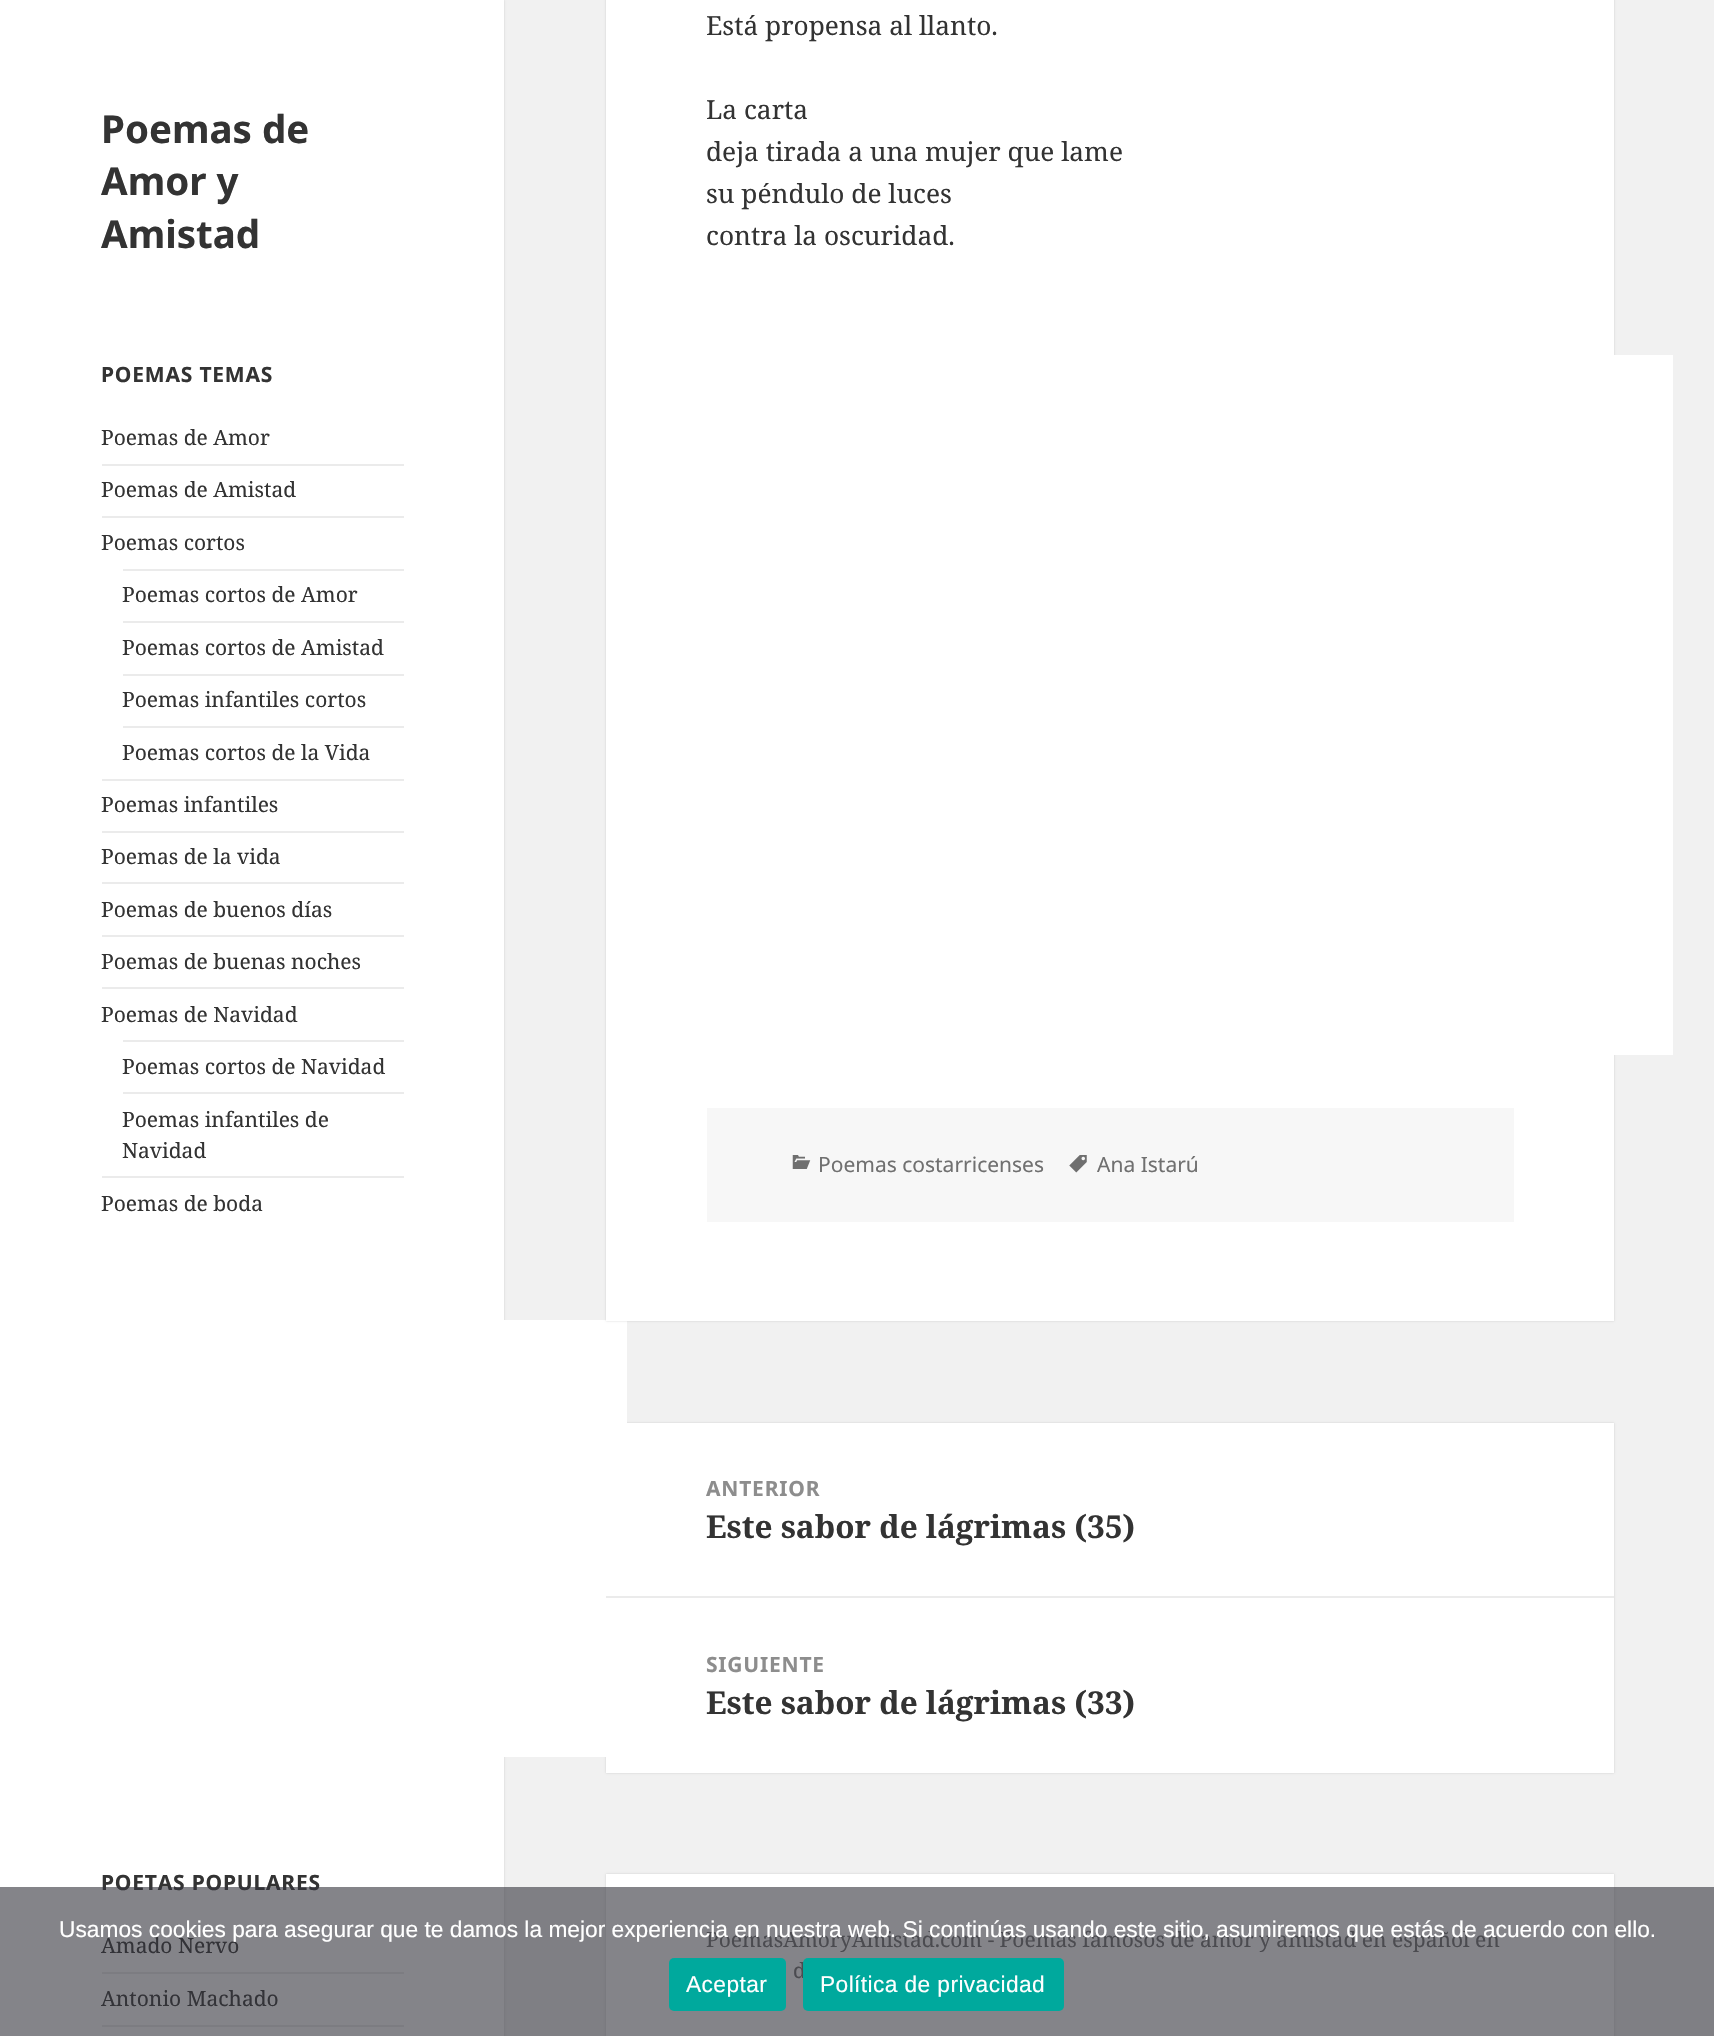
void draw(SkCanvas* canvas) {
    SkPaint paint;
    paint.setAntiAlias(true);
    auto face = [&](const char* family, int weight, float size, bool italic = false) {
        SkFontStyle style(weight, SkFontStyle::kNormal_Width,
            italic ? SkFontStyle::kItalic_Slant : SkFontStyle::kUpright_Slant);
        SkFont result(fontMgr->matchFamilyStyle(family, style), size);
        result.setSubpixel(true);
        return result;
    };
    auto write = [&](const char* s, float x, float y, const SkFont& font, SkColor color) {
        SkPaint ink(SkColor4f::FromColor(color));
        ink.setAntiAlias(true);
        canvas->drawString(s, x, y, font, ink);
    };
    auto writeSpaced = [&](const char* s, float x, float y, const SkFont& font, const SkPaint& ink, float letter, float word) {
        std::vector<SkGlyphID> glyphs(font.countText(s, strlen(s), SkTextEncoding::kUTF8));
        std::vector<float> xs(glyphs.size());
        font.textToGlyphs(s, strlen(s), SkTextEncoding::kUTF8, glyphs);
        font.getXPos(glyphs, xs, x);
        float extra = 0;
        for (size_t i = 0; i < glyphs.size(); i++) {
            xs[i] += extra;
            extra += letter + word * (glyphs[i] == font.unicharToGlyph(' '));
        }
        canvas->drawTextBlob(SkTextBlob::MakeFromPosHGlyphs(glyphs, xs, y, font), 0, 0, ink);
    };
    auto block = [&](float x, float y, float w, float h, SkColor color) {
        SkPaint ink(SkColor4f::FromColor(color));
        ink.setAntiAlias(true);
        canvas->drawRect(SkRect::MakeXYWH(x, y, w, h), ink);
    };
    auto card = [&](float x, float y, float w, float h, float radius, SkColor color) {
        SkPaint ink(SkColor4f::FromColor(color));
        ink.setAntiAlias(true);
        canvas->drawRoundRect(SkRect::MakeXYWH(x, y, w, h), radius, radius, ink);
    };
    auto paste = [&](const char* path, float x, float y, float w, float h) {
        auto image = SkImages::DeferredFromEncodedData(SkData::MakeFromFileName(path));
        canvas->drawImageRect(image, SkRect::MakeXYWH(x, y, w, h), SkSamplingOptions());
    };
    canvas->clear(SkColorSetRGB(241, 241, 241));
    paint.setColor(SkColorSetARGB(38, 0, 0, 0));
    paint.setMaskFilter(SkMaskFilter::MakeBlur(kNormal_SkBlurStyle, 1));
    canvas->drawRect(SkRect::MakeXYWH(0, 0, 504, 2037), paint);
    paint.setMaskFilter(nullptr);
    block(0, 0, 504, 2036, SK_ColorWHITE);
    auto kFont1 = face("Noto Sans", 700, 38.5f);
    write("Poemas de", 101, 143, kFont1, SkColorSetRGB(51, 51, 51));
    write("Amor y", 101, 195, kFont1, SkColorSetRGB(51, 51, 51));
    write("Amistad", 101, 248, kFont1, SkColorSetRGB(51, 51, 51));
    auto kFont2 = face("Noto Sans", 700, 21);
    paint.setColor(SkColorSetRGB(51, 51, 51));
    writeSpaced("POEMAS TEMAS", 101, 382, kFont2, paint, 0.8f, 0);
    auto kFont3 = face("Noto Serif", 400, 21);
    write("Poemas de Amor", 101, 445, kFont3, SkColorSetRGB(51, 51, 51));
    block(102, 464, 302, 2, SkColorSetRGB(235, 235, 235));
    write("Poemas de Amistad", 101, 497, kFont3, SkColorSetRGB(51, 51, 51));
    block(102, 516, 302, 2, SkColorSetRGB(235, 235, 235));
    write("Poemas cortos", 101, 550, kFont3, SkColorSetRGB(51, 51, 51));
    block(123, 569, 281, 2, SkColorSetRGB(235, 235, 235));
    write("Poemas cortos de Amor", 122, 602, kFont3, SkColorSetRGB(51, 51, 51));
    block(123, 621, 281, 2, SkColorSetRGB(235, 235, 235));
    write("Poemas cortos de Amistad", 122, 655, kFont3, SkColorSetRGB(51, 51, 51));
    block(123, 674, 281, 2, SkColorSetRGB(235, 235, 235));
    write("Poemas infantiles cortos", 122, 707, kFont3, SkColorSetRGB(51, 51, 51));
    block(123, 726, 281, 2, SkColorSetRGB(235, 235, 235));
    write("Poemas cortos de la Vida", 122, 760, kFont3, SkColorSetRGB(51, 51, 51));
    block(102, 779, 302, 2, SkColorSetRGB(235, 235, 235));
    write("Poemas infantiles", 101, 812, kFont3, SkColorSetRGB(51, 51, 51));
    block(102, 831, 302, 2, SkColorSetRGB(235, 235, 235));
    write("Poemas de la vida", 101, 864, kFont3, SkColorSetRGB(51, 51, 51));
    block(102, 882, 302, 2, SkColorSetRGB(235, 235, 235));
    write("Poemas de buenos días", 101, 917, kFont3, SkColorSetRGB(51, 51, 51));
    block(102, 935, 302, 2, SkColorSetRGB(235, 235, 235));
    write("Poemas de buenas noches", 101, 969, kFont3, SkColorSetRGB(51, 51, 51));
    block(102, 987, 302, 2, SkColorSetRGB(235, 235, 235));
    write("Poemas de Navidad", 101, 1022, kFont3, SkColorSetRGB(51, 51, 51));
    block(123, 1040, 281, 2, SkColorSetRGB(235, 235, 235));
    write("Poemas cortos de Navidad", 122, 1074, kFont3, SkColorSetRGB(51, 51, 51));
    block(123, 1092, 281, 2, SkColorSetRGB(235, 235, 235));
    write("Poemas infantiles de", 122, 1127, kFont3, SkColorSetRGB(51, 51, 51));
    write("Navidad", 122, 1158, kFont3, SkColorSetRGB(51, 51, 51));
    block(102, 1176, 302, 2, SkColorSetRGB(235, 235, 235));
    write("Poemas de boda", 101, 1211, kFont3, SkColorSetRGB(51, 51, 51));
    paint.setColor(SkColorSetARGB(38, 0, 0, 0));
    paint.setMaskFilter(SkMaskFilter::MakeBlur(kNormal_SkBlurStyle, 1));
    canvas->drawRect(SkRect::MakeXYWH(606, 1423, 1008, 350), paint);
    paint.setMaskFilter(nullptr);
    block(606, 1423, 1008, 350, SK_ColorWHITE);
    block(504, 1320, 123, 437, SK_ColorWHITE);
    paint.setColor(SkColorSetRGB(51, 51, 51));
    writeSpaced("POETAS POPULARES", 101, 1890, kFont2, paint, 0.8f, 0);
    write("Amado Nervo", 101, 1953, kFont3, SkColorSetRGB(51, 51, 51));
    block(102, 1972, 302, 2, SkColorSetRGB(235, 235, 235));
    write("Antonio Machado", 101, 2006, kFont3, SkColorSetRGB(51, 51, 51));
    block(102, 2025, 302, 2, SkColorSetRGB(235, 235, 235));
    paint.setColor(SkColorSetARGB(38, 0, 0, 0));
    paint.setMaskFilter(SkMaskFilter::MakeBlur(kNormal_SkBlurStyle, 1));
    canvas->drawRect(SkRect::MakeXYWH(606, -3, 1008, 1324), paint);
    paint.setMaskFilter(nullptr);
    block(606, 0, 1008, 1321, SK_ColorWHITE);
    auto kFont4 = face("Noto Serif", 400, 26.25f);
    write("Está propensa al llanto.", 706, 35, kFont4, SkColorSetRGB(51, 51, 51));
    write("La carta", 706, 119, kFont4, SkColorSetRGB(51, 51, 51));
    write("deja tirada a una mujer que lame", 706, 161, kFont4, SkColorSetRGB(51, 51, 51));
    write("su péndulo de luces", 706, 203, kFont4, SkColorSetRGB(51, 51, 51));
    write("contra la oscuridad.", 706, 245, kFont4, SkColorSetRGB(51, 51, 51));
    block(1614, 355, 59, 700, SK_ColorWHITE);
    block(707, 1108, 807, 114, SkColorSetRGB(247, 247, 247));
    paste("pic1.png", 792, 1155, 19, 14);
    auto kFont5 = face("Noto Sans", 400, 21);
    write("Poemas costarricenses", 818, 1172, kFont5, SkColorSetRGB(112, 112, 112));
    paste("pic2.png", 1069, 1155, 18, 18);
    write("Ana Istarú", 1097, 1172, kFont5, SkColorSetRGB(112, 112, 112));
    paint.setColor(SkColorSetRGB(141, 141, 141));
    writeSpaced("ANTERIOR", 706, 1496, kFont2, paint, 0.8f, 0);
    auto kFont6 = face("Noto Serif", 700, 31.5f);
    write("Este sabor de lágrimas (35)", 706, 1538, kFont6, SkColorSetRGB(51, 51, 51));
    block(606, 1596, 1008, 2, SkColorSetRGB(235, 235, 235));
    writeSpaced("SIGUIENTE", 706, 1672, kFont2, paint, 0.8f, 0);
    write("Este sabor de lágrimas (33)", 706, 1714, kFont6, SkColorSetRGB(51, 51, 51));
    paint.setColor(SkColorSetARGB(38, 0, 0, 0));
    paint.setMaskFilter(SkMaskFilter::MakeBlur(kNormal_SkBlurStyle, 1));
    canvas->drawRect(SkRect::MakeXYWH(606, 1874, 1008, 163), paint);
    paint.setMaskFilter(nullptr);
    block(606, 1874, 1008, 162, SK_ColorWHITE);
    write("PoemasAmoryAmistad.com - Poemas famosos de amor y amistad en español en", 706, 1947, kFont3, SkColorSetRGB(112, 112, 112));
    write("d", 793, 1978, kFont3, SkColorSetRGB(112, 112, 112));
    block(0, 1887, 1714, 149, SkColorSetARGB(153, 50, 50, 58));
    auto kFont7 = face("Liberation Sans", 400, 22.75f);
    write("Usamos cookies para asegurar que te damos la mejor experiencia en nuestra web. Si continúas usando este sitio, asumiremos que estás de acuerdo con ello.", 59, 1937, kFont7, SK_ColorWHITE);
    card(669, 1958, 117, 53, 5, SkColorSetRGB(0, 169, 157));
    paint.setColor(SK_ColorWHITE);
    writeSpaced("Aceptar", 686, 1992, kFont7, paint, 0.4f, 0);
    card(803, 1958, 261, 53, 5, SkColorSetRGB(0, 169, 157));
    writeSpaced("Política de privacidad", 820, 1992, kFont7, paint, 0.4f, 0);
}
